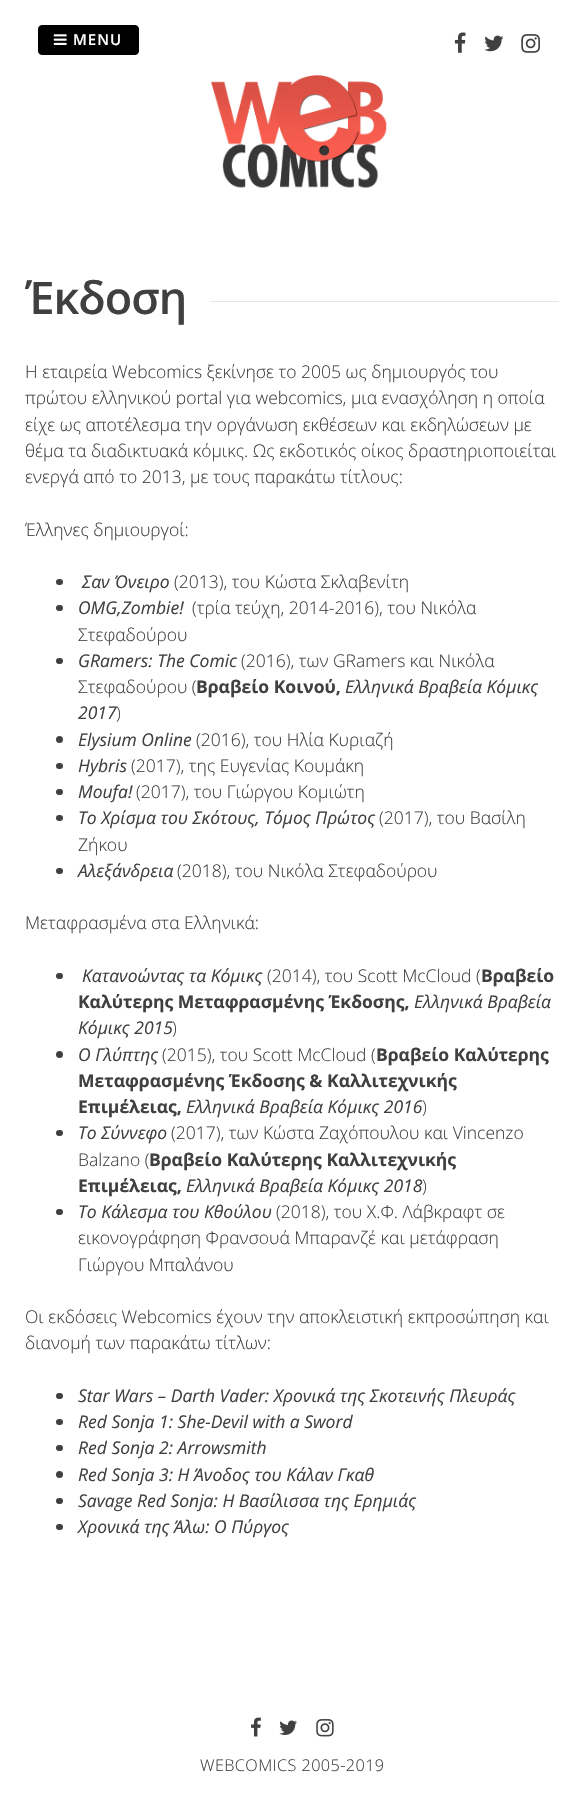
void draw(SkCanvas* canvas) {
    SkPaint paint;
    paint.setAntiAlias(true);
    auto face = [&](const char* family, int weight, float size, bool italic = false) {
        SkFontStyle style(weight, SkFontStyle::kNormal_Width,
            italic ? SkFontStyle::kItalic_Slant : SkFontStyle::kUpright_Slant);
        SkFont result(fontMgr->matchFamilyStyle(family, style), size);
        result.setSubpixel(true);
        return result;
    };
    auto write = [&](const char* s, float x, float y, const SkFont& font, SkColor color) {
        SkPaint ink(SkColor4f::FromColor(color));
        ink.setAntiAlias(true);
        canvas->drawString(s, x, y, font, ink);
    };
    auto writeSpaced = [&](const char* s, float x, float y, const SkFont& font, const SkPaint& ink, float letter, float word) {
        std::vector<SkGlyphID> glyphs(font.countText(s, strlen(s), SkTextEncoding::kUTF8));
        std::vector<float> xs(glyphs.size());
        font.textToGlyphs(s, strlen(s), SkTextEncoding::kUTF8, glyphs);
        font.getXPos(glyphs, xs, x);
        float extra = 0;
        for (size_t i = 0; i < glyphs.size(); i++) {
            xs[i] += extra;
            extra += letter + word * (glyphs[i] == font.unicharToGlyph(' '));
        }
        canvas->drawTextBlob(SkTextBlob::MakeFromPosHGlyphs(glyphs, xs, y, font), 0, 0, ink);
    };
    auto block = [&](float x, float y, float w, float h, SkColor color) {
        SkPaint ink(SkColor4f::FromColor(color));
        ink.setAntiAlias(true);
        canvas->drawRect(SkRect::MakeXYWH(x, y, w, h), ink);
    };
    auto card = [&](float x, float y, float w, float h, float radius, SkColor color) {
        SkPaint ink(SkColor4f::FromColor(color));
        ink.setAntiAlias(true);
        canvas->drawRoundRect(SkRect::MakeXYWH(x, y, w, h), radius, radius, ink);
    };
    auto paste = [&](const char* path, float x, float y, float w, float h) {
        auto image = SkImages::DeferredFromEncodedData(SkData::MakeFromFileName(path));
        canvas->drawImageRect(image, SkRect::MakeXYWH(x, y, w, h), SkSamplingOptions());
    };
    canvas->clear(SK_ColorWHITE);
    paint.setColor(SK_ColorBLACK);
    canvas->drawRoundRect(SkRect::MakeXYWH(38.5f, 25.5f, 100, 29), 3.5f, 3.5f, paint);
    paint.setStyle(SkPaint::kStroke_Style);
    paint.setStrokeWidth(1);
    canvas->drawRoundRect(SkRect::MakeXYWH(38.5f, 25.5f, 100, 29), 3.5f, 3.5f, paint);
    paste("pic1.png", 53, 34, 14, 11);
    auto kFont1 = face("Open Sans", 600, 15);
    paint.setStyle(SkPaint::kFill_Style);
    paint.setColor(SK_ColorWHITE);
    writeSpaced("MENU", 73, 45, kFont1, paint, 1, 0);
    paste("pic2.png", 454, 32, 12, 21);
    paste("pic3.png", 484, 35, 20, 17);
    paste("pic4.png", 521, 34, 19, 19);
    paste("pic5.png", 211, 75, 176, 113);
    auto kFont2 = face("Open Sans", 600, 45);
    paint.setColor(SkColorSetRGB(64, 64, 64));
    writeSpaced("Έκδοση", 25, 314, kFont2, paint, -1, 0);
    block(210, 301, 349, 1, SkColorSetRGB(229, 229, 229));
    auto kFont3 = face("Open Sans", 300, 17.5f);
    write("Η εταιρεία Webcomics ξεκίνησε το 2005 ως δημιουργός του", 25, 378, kFont3, SkColorSetRGB(64, 64, 64));
    write("πρώτου ελληνικού portal για webcomics, μια ενασχόληση η οποία", 25, 404, kFont3, SkColorSetRGB(64, 64, 64));
    write("είχε ως αποτέλεσμα την οργάνωση εκθέσεων και εκδηλώσεων με", 25, 431, kFont3, SkColorSetRGB(64, 64, 64));
    write("θέμα τα διαδικτυακά κόμικς. Ως εκδοτικός οίκος δραστηριοποιείται", 25, 457, kFont3, SkColorSetRGB(64, 64, 64));
    write("ενεργά από το 2013, με τους παρακάτω τίτλους:", 25, 483, kFont3, SkColorSetRGB(64, 64, 64));
    write("Έλληνες δημιουργοί:", 25, 536, kFont3, SkColorSetRGB(64, 64, 64));
    card(56, 579, 7, 6, 3, SkColorSetRGB(64, 64, 64));
    auto kFont4 = face("Open Sans", 400, 17.5f, true);
    write("Σαν Όνειρο", 82, 588, kFont4, SkColorSetRGB(64, 64, 64));
    write("(2013), του Κώστα Σκλαβενίτη", 174, 588, kFont3, SkColorSetRGB(64, 64, 64));
    card(56, 605, 7, 6, 3, SkColorSetRGB(64, 64, 64));
    write("OMG,Zombie!", 78, 614, kFont4, SkColorSetRGB(64, 64, 64));
    write("(τρία τεύχη, 2014-2016), του Νικόλα", 192, 614, kFont3, SkColorSetRGB(64, 64, 64));
    write("Στεφαδούρου", 78, 641, kFont3, SkColorSetRGB(64, 64, 64));
    card(56, 658, 7, 6, 3, SkColorSetRGB(64, 64, 64));
    write("GRamers: The Comic", 78, 667, kFont4, SkColorSetRGB(64, 64, 64));
    write("(2016), των GRamers και Νικόλα", 241, 667, kFont3, SkColorSetRGB(64, 64, 64));
    write("Στεφαδούρου (", 78, 693, kFont3, SkColorSetRGB(64, 64, 64));
    auto kFont5 = face("Open Sans", 700, 17.5f);
    write("Βραβείο Κοινού,", 196, 693, kFont5, SkColorSetRGB(64, 64, 64));
    write("Ελληνικά Βραβεία Κόμικς", 345, 693, kFont4, SkColorSetRGB(64, 64, 64));
    write("2017", 78, 719, kFont4, SkColorSetRGB(64, 64, 64));
    write(")", 116, 719, kFont3, SkColorSetRGB(64, 64, 64));
    canvas->drawCircle(59.5f, 739.5f, 3.5f, paint);
    write("Elysium Online", 78, 746, kFont4, SkColorSetRGB(64, 64, 64));
    write("(2016), του Ηλία Κυριαζή", 196, 746, kFont3, SkColorSetRGB(64, 64, 64));
    card(56, 763, 7, 6, 3, SkColorSetRGB(64, 64, 64));
    write("Hybris", 78, 772, kFont4, SkColorSetRGB(64, 64, 64));
    write("(2017), της Ευγενίας Κουμάκη", 131, 772, kFont3, SkColorSetRGB(64, 64, 64));
    card(56, 789, 7, 6, 3, SkColorSetRGB(64, 64, 64));
    write("Μοufa!", 78, 798, kFont4, SkColorSetRGB(64, 64, 64));
    write("(2017), του Γιώργου Κομιώτη", 136, 798, kFont3, SkColorSetRGB(64, 64, 64));
    card(56, 815, 7, 6, 3, SkColorSetRGB(64, 64, 64));
    write("Το Χρίσμα του Σκότους, Τόμος Πρώτος", 78, 824, kFont4, SkColorSetRGB(64, 64, 64));
    write("(2017), του Βασίλη", 379, 824, kFont3, SkColorSetRGB(64, 64, 64));
    write("Ζήκου", 78, 851, kFont3, SkColorSetRGB(64, 64, 64));
    card(56, 868, 7, 6, 3, SkColorSetRGB(64, 64, 64));
    write("Αλεξάνδρεια", 78, 877, kFont4, SkColorSetRGB(64, 64, 64));
    write("(2018), του Νικόλα Στεφαδούρου", 177, 877, kFont3, SkColorSetRGB(64, 64, 64));
    write("Μεταφρασμένα στα Ελληνικά:", 25, 929, kFont3, SkColorSetRGB(64, 64, 64));
    card(56, 973, 7, 6, 3, SkColorSetRGB(64, 64, 64));
    write("Κατανοώντας τα Κόμικς", 82, 982, kFont4, SkColorSetRGB(64, 64, 64));
    write("(2014), του Scott McCloud (", 267, 982, kFont3, SkColorSetRGB(64, 64, 64));
    write("Βραβείο", 481, 982, kFont5, SkColorSetRGB(64, 64, 64));
    write("Καλύτερης Μεταφρασμένης Έκδοσης,", 78, 1008, kFont5, SkColorSetRGB(64, 64, 64));
    write("Ελληνικά Βραβεία", 414, 1008, kFont4, SkColorSetRGB(64, 64, 64));
    write("Κόμικς 2015", 78, 1034, kFont4, SkColorSetRGB(64, 64, 64));
    write(")", 172, 1034, kFont3, SkColorSetRGB(64, 64, 64));
    canvas->drawCircle(59.5f, 1054.5f, 3.5f, paint);
    write("Ο Γλύπτης", 78, 1061, kFont4, SkColorSetRGB(64, 64, 64));
    write("(2015), του Scott McCloud (", 162, 1061, kFont3, SkColorSetRGB(64, 64, 64));
    write("Βραβείο Καλύτερης", 376, 1061, kFont5, SkColorSetRGB(64, 64, 64));
    write("Μεταφρασμένης Έκδοσης & Καλλιτεχνικής", 78, 1087, kFont5, SkColorSetRGB(64, 64, 64));
    write("Επιμέλειας,", 78, 1113, kFont5, SkColorSetRGB(64, 64, 64));
    write("Ελληνικά Βραβεία Κόμικς 2016", 186, 1113, kFont4, SkColorSetRGB(64, 64, 64));
    write(")", 422, 1113, kFont3, SkColorSetRGB(64, 64, 64));
    card(56, 1130, 7, 6, 3, SkColorSetRGB(64, 64, 64));
    write("Το Σύννεφο", 78, 1139, kFont4, SkColorSetRGB(64, 64, 64));
    write("(2017), των Κώστα Ζαχόπουλου και Vincenzo", 171, 1139, kFont3, SkColorSetRGB(64, 64, 64));
    write("Balzano (", 78, 1166, kFont3, SkColorSetRGB(64, 64, 64));
    write("Βραβείο Καλύτερης Καλλιτεχνικής", 149, 1166, kFont5, SkColorSetRGB(64, 64, 64));
    write("Επιμέλειας,", 78, 1192, kFont5, SkColorSetRGB(64, 64, 64));
    write("Ελληνικά Βραβεία Κόμικς 2018", 186, 1192, kFont4, SkColorSetRGB(64, 64, 64));
    write(")", 422, 1192, kFont3, SkColorSetRGB(64, 64, 64));
    card(56, 1209, 7, 6, 3, SkColorSetRGB(64, 64, 64));
    write("Το Κάλεσμα του Κθούλου", 78, 1218, kFont4, SkColorSetRGB(64, 64, 64));
    write("(2018), του Χ.Φ. Λάβκραφτ σε", 276, 1218, kFont3, SkColorSetRGB(64, 64, 64));
    write("εικονογράφηση Φρανσουά Μπαρανζέ και μετάφραση", 78, 1244, kFont3, SkColorSetRGB(64, 64, 64));
    write("Γιώργου Μπαλάνου", 78, 1271, kFont3, SkColorSetRGB(64, 64, 64));
    write("Οι εκδόσεις Webcomics έχουν την αποκλειστική εκπροσώπηση και", 25, 1323, kFont3, SkColorSetRGB(64, 64, 64));
    write("διανομή των παρακάτω τίτλων:", 25, 1349, kFont3, SkColorSetRGB(64, 64, 64));
    card(56, 1393, 7, 6, 3, SkColorSetRGB(64, 64, 64));
    write("Star Wars – Darth Vader: Χρονικά της Σκοτεινής Πλευράς", 78, 1402, kFont4, SkColorSetRGB(64, 64, 64));
    card(56, 1419, 7, 6, 3, SkColorSetRGB(64, 64, 64));
    write("Red Sonja 1: She-Devil with a Sword", 78, 1428, kFont4, SkColorSetRGB(64, 64, 64));
    card(56, 1445, 7, 6, 3, SkColorSetRGB(64, 64, 64));
    write("Red Sonja 2: Arrowsmith", 78, 1454, kFont4, SkColorSetRGB(64, 64, 64));
    canvas->drawCircle(59.5f, 1474.5f, 3.5f, paint);
    write("Red Sonja 3: Η Άνοδος του Κάλαν Γκαθ", 78, 1481, kFont4, SkColorSetRGB(64, 64, 64));
    card(56, 1498, 7, 6, 3, SkColorSetRGB(64, 64, 64));
    write("Savage Red Sonja: Η Βασίλισσα της Ερημιάς", 78, 1507, kFont4, SkColorSetRGB(64, 64, 64));
    card(56, 1524, 7, 6, 3, SkColorSetRGB(64, 64, 64));
    write("Χρονικά της Άλω: Ο Πύργος", 78, 1533, kFont4, SkColorSetRGB(64, 64, 64));
    paste("pic6.png", 251, 1717, 10, 20);
    paste("pic7.png", 279, 1720, 18, 15);
    paste("pic8.png", 316, 1719, 18, 18);
    auto kFont6 = face("Open Sans", 300, 16.25f);
    writeSpaced("WEBCOMICS 2005-2019", 200, 1771, kFont6, paint, 0.4f, 0);
}
